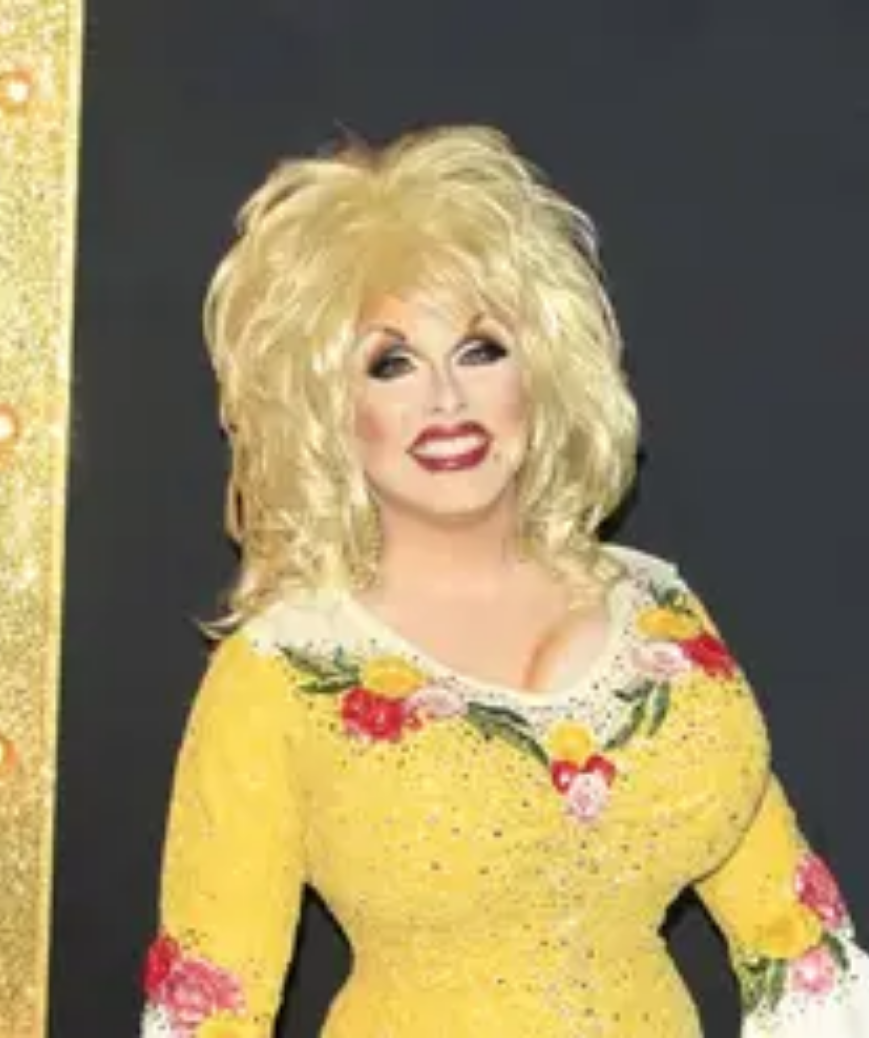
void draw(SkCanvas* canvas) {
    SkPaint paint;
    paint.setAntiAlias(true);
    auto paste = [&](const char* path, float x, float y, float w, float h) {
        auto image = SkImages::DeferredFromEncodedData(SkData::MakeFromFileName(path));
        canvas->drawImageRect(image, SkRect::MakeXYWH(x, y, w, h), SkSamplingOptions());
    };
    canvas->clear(SK_ColorWHITE);
    paste("pic1.png", 0, 0, 869, 1038);
}
